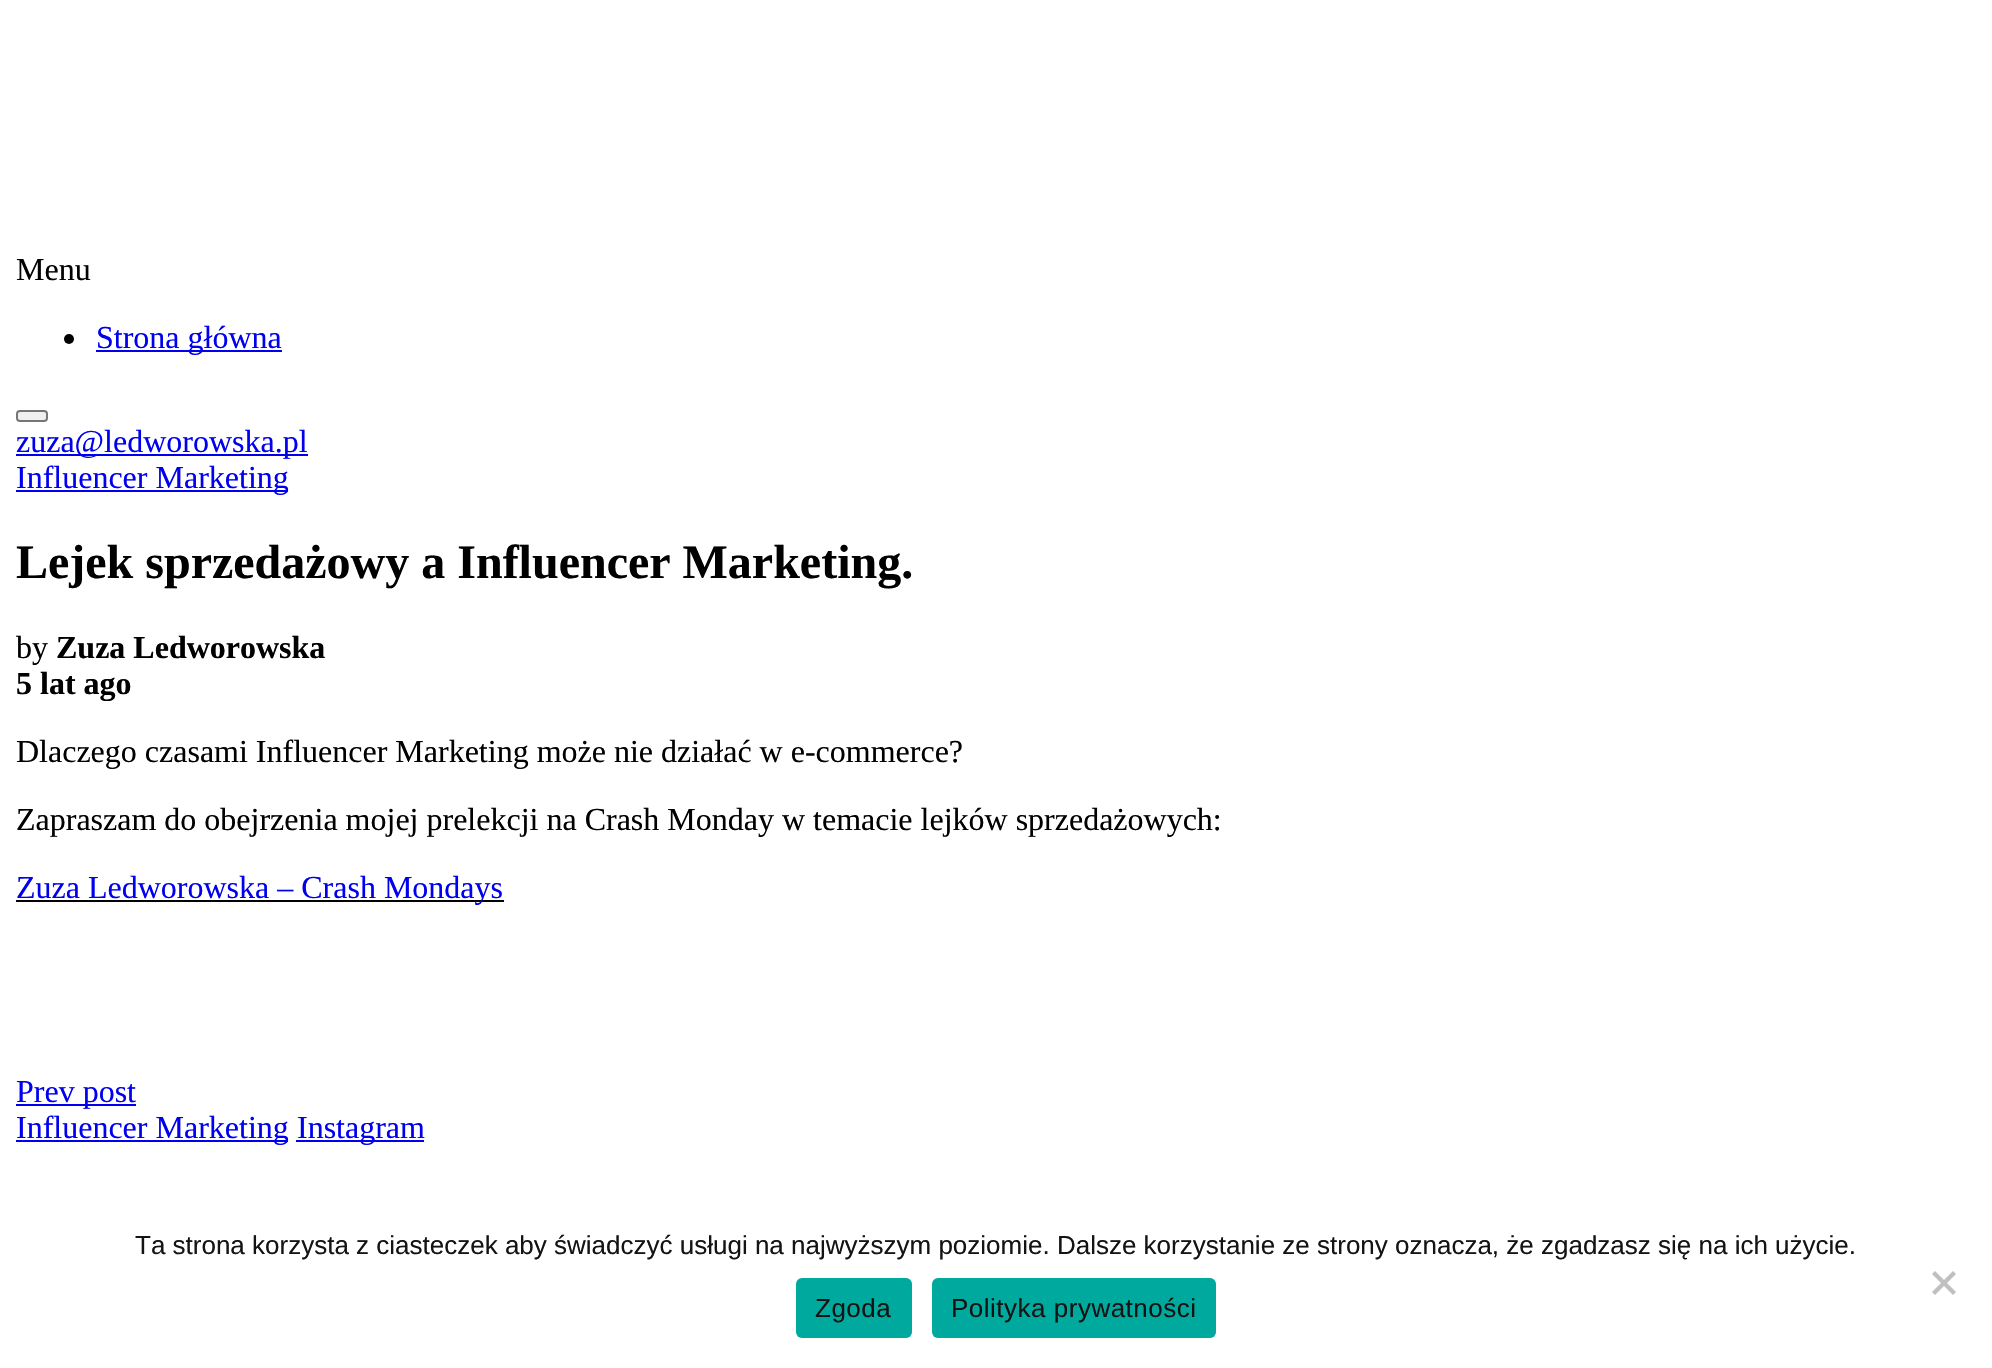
void draw(SkCanvas* canvas) {
    SkPaint paint;
    paint.setAntiAlias(true);
    auto face = [&](const char* family, int weight, float size, bool italic = false) {
        SkFontStyle style(weight, SkFontStyle::kNormal_Width,
            italic ? SkFontStyle::kItalic_Slant : SkFontStyle::kUpright_Slant);
        SkFont result(fontMgr->matchFamilyStyle(family, style), size);
        result.setSubpixel(true);
        return result;
    };
    auto write = [&](const char* s, float x, float y, const SkFont& font, SkColor color) {
        SkPaint ink(SkColor4f::FromColor(color));
        ink.setAntiAlias(true);
        canvas->drawString(s, x, y, font, ink);
    };
    auto writeSpaced = [&](const char* s, float x, float y, const SkFont& font, const SkPaint& ink, float letter, float word) {
        std::vector<SkGlyphID> glyphs(font.countText(s, strlen(s), SkTextEncoding::kUTF8));
        std::vector<float> xs(glyphs.size());
        font.textToGlyphs(s, strlen(s), SkTextEncoding::kUTF8, glyphs);
        font.getXPos(glyphs, xs, x);
        float extra = 0;
        for (size_t i = 0; i < glyphs.size(); i++) {
            xs[i] += extra;
            extra += letter + word * (glyphs[i] == font.unicharToGlyph(' '));
        }
        canvas->drawTextBlob(SkTextBlob::MakeFromPosHGlyphs(glyphs, xs, y, font), 0, 0, ink);
    };
    auto block = [&](float x, float y, float w, float h, SkColor color) {
        SkPaint ink(SkColor4f::FromColor(color));
        ink.setAntiAlias(true);
        canvas->drawRect(SkRect::MakeXYWH(x, y, w, h), ink);
    };
    auto card = [&](float x, float y, float w, float h, float radius, SkColor color) {
        SkPaint ink(SkColor4f::FromColor(color));
        ink.setAntiAlias(true);
        canvas->drawRoundRect(SkRect::MakeXYWH(x, y, w, h), radius, radius, ink);
    };
    canvas->clear(SK_ColorWHITE);
    auto kFont1 = face("Liberation Serif", 400, 32);
    write("Menu", 16, 280, kFont1, SK_ColorBLACK);
    paint.setColor(SK_ColorBLACK);
    canvas->drawCircle(69, 339, 5, paint);
    block(96, 350, 186, 2, SkColorSetRGB(0, 0, 238));
    write("Strona główna", 96, 348, kFont1, SkColorSetRGB(0, 0, 238));
    paint.setColor(SkColorSetRGB(239, 239, 239));
    canvas->drawRoundRect(SkRect::MakeXYWH(17, 411, 30, 10), 3, 3, paint);
    paint.setStyle(SkPaint::kStroke_Style);
    paint.setStrokeWidth(2);
    paint.setColor(SkColorSetRGB(118, 118, 118));
    canvas->drawRoundRect(SkRect::MakeXYWH(17, 411, 30, 10), 3, 3, paint);
    block(16, 454, 292, 2, SkColorSetRGB(0, 0, 238));
    write("zuza@ledworowska.pl", 16, 452, kFont1, SkColorSetRGB(0, 0, 238));
    block(16, 490, 272, 2, SkColorSetRGB(0, 0, 238));
    write("Influencer Marketing", 16, 488, kFont1, SkColorSetRGB(0, 0, 238));
    auto kFont2 = face("Liberation Serif", 700, 48);
    write("Lejek sprzedażowy a Influencer Marketing.", 16, 578, kFont2, SK_ColorBLACK);
    write("by", 16, 658, kFont1, SK_ColorBLACK);
    auto kFont3 = face("Liberation Serif", 700, 32);
    write("Zuza Ledworowska", 56, 658, kFont3, SK_ColorBLACK);
    write("5 lat ago", 16, 694, kFont3, SK_ColorBLACK);
    write("Dlaczego czasami Influencer Marketing może nie działać w e-commerce?", 16, 762, kFont1, SK_ColorBLACK);
    write("Zapraszam do obejrzenia mojej prelekcji na Crash Monday w temacie lejków sprzedażowych:", 16, 830, kFont1, SK_ColorBLACK);
    block(16, 900, 488, 2, SK_ColorBLACK);
    write("Zuza Ledworowska – Crash Mondays", 16, 898, kFont1, SkColorSetRGB(0, 0, 238));
    block(16, 1104, 120, 2, SkColorSetRGB(0, 0, 238));
    write("Prev post", 16, 1102, kFont1, SkColorSetRGB(0, 0, 238));
    block(16, 1140, 272, 2, SkColorSetRGB(0, 0, 238));
    write("Influencer Marketing", 16, 1138, kFont1, SkColorSetRGB(0, 0, 238));
    block(296, 1140, 128, 2, SkColorSetRGB(0, 0, 238));
    write("Instagram", 297, 1138, kFont1, SkColorSetRGB(0, 0, 238));
    auto kFont4 = face("Liberation Sans", 400, 26);
    write("Ta strona korzysta z ciasteczek aby świadczyć usługi na najwyższym poziomie. Dalsze korzystanie ze strony oznacza, że zgadzasz się na ich użycie.", 135, 1254, kFont4, SkColorSetRGB(20, 20, 20));
    paint.setStyle(SkPaint::kFill_Style);
    paint.setColor(SkColorSetRGB(192, 192, 192));
    canvas->drawPath(SkPathBuilder().moveTo(1953, 1271).lineTo(1956, 1274).lineTo(1935, 1295).lineTo(1932, 1292).close().detach(), paint);
    canvas->drawPath(SkPathBuilder().moveTo(1932, 1274).lineTo(1935, 1271).lineTo(1956, 1292).lineTo(1953, 1295).close().detach(), paint);
    card(796, 1278, 116, 60, 6, SkColorSetRGB(0, 169, 157));
    paint.setColor(SkColorSetRGB(20, 20, 20));
    writeSpaced("Zgoda", 815, 1317, kFont4, paint, 0.5f, 0);
    card(932, 1278, 284, 60, 6, SkColorSetRGB(0, 169, 157));
    writeSpaced("Polityka prywatności", 951, 1317, kFont4, paint, 0.5f, 0);
}
